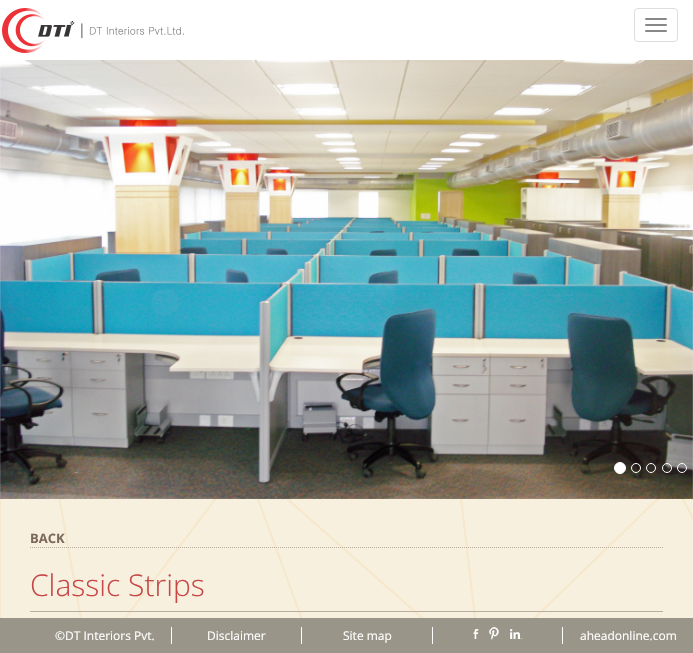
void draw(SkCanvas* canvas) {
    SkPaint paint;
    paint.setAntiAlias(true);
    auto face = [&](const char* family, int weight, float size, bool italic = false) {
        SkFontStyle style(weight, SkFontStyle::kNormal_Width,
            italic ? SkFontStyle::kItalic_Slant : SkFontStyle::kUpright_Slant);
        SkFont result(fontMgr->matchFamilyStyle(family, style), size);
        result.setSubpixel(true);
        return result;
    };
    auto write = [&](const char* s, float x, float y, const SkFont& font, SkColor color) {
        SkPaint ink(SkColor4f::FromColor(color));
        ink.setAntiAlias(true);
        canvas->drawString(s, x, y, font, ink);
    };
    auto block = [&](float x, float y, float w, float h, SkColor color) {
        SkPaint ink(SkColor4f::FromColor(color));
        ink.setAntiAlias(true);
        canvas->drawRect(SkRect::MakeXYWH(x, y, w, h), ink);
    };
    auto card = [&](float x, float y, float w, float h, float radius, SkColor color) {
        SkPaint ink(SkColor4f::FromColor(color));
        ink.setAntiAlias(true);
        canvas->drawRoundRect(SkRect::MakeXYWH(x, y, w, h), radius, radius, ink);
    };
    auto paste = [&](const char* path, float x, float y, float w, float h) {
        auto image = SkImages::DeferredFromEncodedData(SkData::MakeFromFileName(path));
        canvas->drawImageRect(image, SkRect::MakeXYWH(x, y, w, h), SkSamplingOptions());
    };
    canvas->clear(SK_ColorWHITE);
    paste("pic1.png", 0, 498, 693, 120);
    paste("pic2.png", 2, 8, 182, 45);
    paint.setStyle(SkPaint::kStroke_Style);
    paint.setStrokeWidth(1);
    paint.setColor(SkColorSetRGB(221, 221, 221));
    canvas->drawRoundRect(SkRect::MakeXYWH(634.5f, 8.5f, 43, 33), 3.5f, 3.5f, paint);
    card(645, 18, 22, 2, 1, SkColorSetRGB(136, 136, 136));
    card(645, 24, 22, 2, 1, SkColorSetRGB(136, 136, 136));
    card(645, 30, 22, 2, 1, SkColorSetRGB(136, 136, 136));
    paste("pic3.png", 0, 60, 693, 439);
    paint.setStyle(SkPaint::kFill_Style);
    paint.setColor(SK_ColorWHITE);
    canvas->drawCircle(620, 468, 5.5f, paint);
    paint.setStyle(SkPaint::kStroke_Style);
    canvas->drawCircle(620, 468, 5.5f, paint);
    canvas->drawCircle(636, 468, 4.5f, paint);
    canvas->drawCircle(651, 468, 4.5f, paint);
    canvas->drawCircle(667, 468, 4.5f, paint);
    canvas->drawCircle(682, 468, 4.5f, paint);
    auto kFont1 = face("Open Sans", 700, 13);
    write("BACK", 30, 543, kFont1, SkColorSetRGB(122, 105, 92));
    paint.setColor(SkColorSetRGB(186, 172, 158));
    paint.setPathEffect(SkDashPathEffect::Make({{1, 1}}, 0));
    canvas->drawPath(SkPathBuilder().moveTo(30, 547.5f).lineTo(663, 547.5f).detach(), paint);
    paint.setPathEffect(nullptr);
    auto kFont2 = face("Open Sans", 300, 30);
    write("Classic Strips", 30, 596, kFont2, SkColorSetRGB(198, 71, 70));
    block(30, 611, 633, 1, SkColorSetRGB(186, 172, 158));
    block(0, 618, 693, 35, SkColorSetRGB(153, 149, 137));
    auto kFont3 = face("Open Sans", 400, 12);
    write("©DT Interiors Pvt.", 55, 640, kFont3, SK_ColorWHITE);
    block(171, 627, 1, 17, SK_ColorWHITE);
    write("Disclaimer", 207, 640, kFont3, SK_ColorWHITE);
    block(301, 627, 1, 17, SK_ColorWHITE);
    write("Site map", 343, 640, kFont3, SK_ColorWHITE);
    block(432, 627, 1, 17, SK_ColorWHITE);
    paste("pic4.png", 473, 629, 6, 10);
    paste("pic5.png", 489, 627, 10, 13);
    paste("pic6.png", 510, 629, 13, 10);
    block(562, 627, 1, 17, SK_ColorWHITE);
    write("aheadonline.com", 580, 640, kFont3, SK_ColorWHITE);
}
